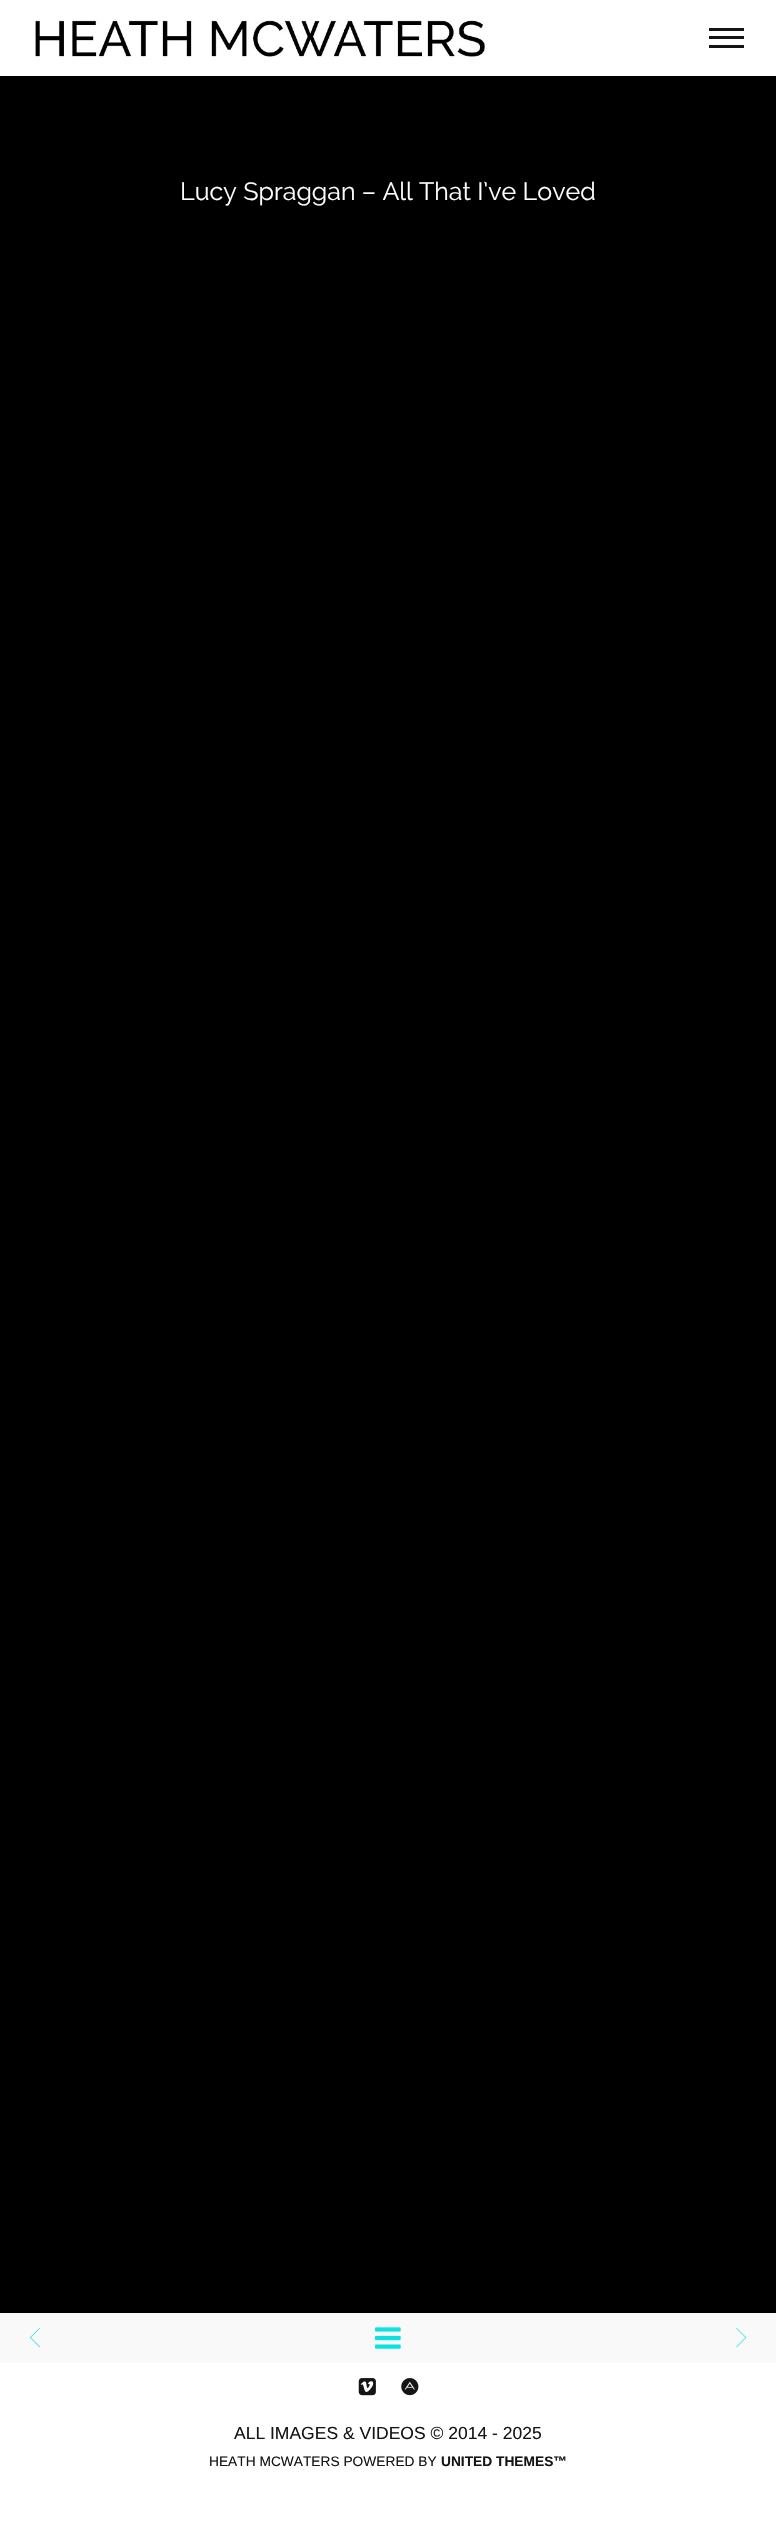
void draw(SkCanvas* canvas) {
    SkPaint paint;
    paint.setAntiAlias(true);
    auto face = [&](const char* family, int weight, float size, bool italic = false) {
        SkFontStyle style(weight, SkFontStyle::kNormal_Width,
            italic ? SkFontStyle::kItalic_Slant : SkFontStyle::kUpright_Slant);
        SkFont result(fontMgr->matchFamilyStyle(family, style), size);
        result.setSubpixel(true);
        return result;
    };
    auto write = [&](const char* s, float x, float y, const SkFont& font, SkColor color) {
        SkPaint ink(SkColor4f::FromColor(color));
        ink.setAntiAlias(true);
        canvas->drawString(s, x, y, font, ink);
    };
    auto block = [&](float x, float y, float w, float h, SkColor color) {
        SkPaint ink(SkColor4f::FromColor(color));
        ink.setAntiAlias(true);
        canvas->drawRect(SkRect::MakeXYWH(x, y, w, h), ink);
    };
    auto paste = [&](const char* path, float x, float y, float w, float h) {
        auto image = SkImages::DeferredFromEncodedData(SkData::MakeFromFileName(path));
        canvas->drawImageRect(image, SkRect::MakeXYWH(x, y, w, h), SkSamplingOptions());
    };
    canvas->clear(SK_ColorWHITE);
    paste("pic1.png", 35, 20, 450, 37);
    block(709, 36, 35, 3, SkColorSetRGB(21, 21, 21));
    block(709, 28, 35, 3, SkColorSetRGB(21, 21, 21));
    block(709, 45, 35, 3, SkColorSetRGB(21, 21, 21));
    block(0, 76, 776, 2237, SK_ColorBLACK);
    auto kFont1 = face("Raleway", 400, 25);
    write("Lucy Spraggan – All That I’ve Loved", 180, 200, kFont1, SK_ColorWHITE);
    block(0, 2313, 776, 50, SkColorSetRGB(249, 249, 249));
    paste("pic2.png", 30, 2327, 10, 21);
    paste("pic3.png", 375, 2327, 26, 22);
    paste("pic4.png", 736, 2327, 11, 21);
    paste("pic5.png", 358, 2378, 18, 18);
    paste("pic6.png", 401, 2378, 18, 18);
    auto kFont2 = face("Liberation Sans", 400, 17.5f);
    write("ALL IMAGES & VIDEOS © 2014 - 2025", 234, 2439, kFont2, SkColorSetRGB(21, 21, 21));
    auto kFont3 = face("Liberation Sans", 400, 13.75f);
    write("HEATH MCWATERS POWERED BY", 209, 2466, kFont3, SkColorSetRGB(21, 21, 21));
    auto kFont4 = face("Liberation Sans", 700, 13.75f);
    write("UNITED THEMES™", 441, 2466, kFont4, SkColorSetRGB(21, 21, 21));
}
